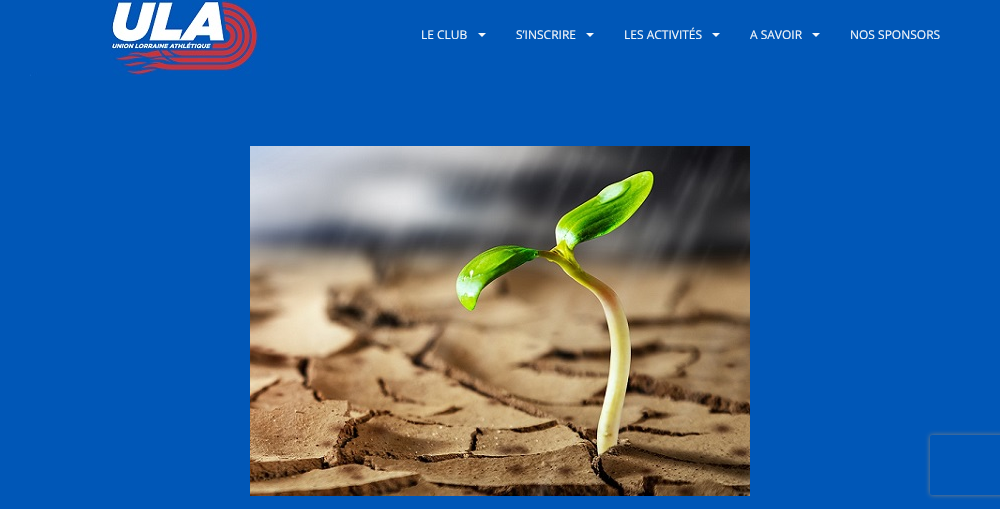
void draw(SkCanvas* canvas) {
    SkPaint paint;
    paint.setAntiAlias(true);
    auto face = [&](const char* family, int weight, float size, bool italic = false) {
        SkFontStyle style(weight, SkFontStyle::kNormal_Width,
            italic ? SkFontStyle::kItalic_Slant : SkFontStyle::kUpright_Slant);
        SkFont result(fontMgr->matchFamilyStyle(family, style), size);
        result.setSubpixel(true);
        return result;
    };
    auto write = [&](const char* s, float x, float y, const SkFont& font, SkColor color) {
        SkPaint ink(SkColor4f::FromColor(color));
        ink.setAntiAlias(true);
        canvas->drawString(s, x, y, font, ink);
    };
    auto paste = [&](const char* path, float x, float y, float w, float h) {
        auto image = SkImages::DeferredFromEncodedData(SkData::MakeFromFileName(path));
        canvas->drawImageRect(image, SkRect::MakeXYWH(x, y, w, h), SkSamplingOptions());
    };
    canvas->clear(SkColorSetRGB(0, 87, 183));
    paste("pic1.png", 30, 0, 238, 76);
    auto kFont1 = face("Open Sans", 400, 12);
    write("LE CLUB", 421, 39, kFont1, SkColorSetRGB(245, 247, 250));
    paint.setColor(SkColorSetRGB(245, 247, 250));
    canvas->drawPath(SkPathBuilder().moveTo(478, 33).lineTo(486, 33).lineTo(482, 37).close().detach(), paint);
    write("S’INSCRIRE", 516, 39, kFont1, SkColorSetRGB(245, 247, 250));
    canvas->drawPath(SkPathBuilder().moveTo(586, 33).lineTo(594, 33).lineTo(590, 37).close().detach(), paint);
    write("LES ACTIVITÉS", 624, 39, kFont1, SkColorSetRGB(245, 247, 250));
    canvas->drawPath(SkPathBuilder().moveTo(712, 33).lineTo(720, 33).lineTo(716, 37).close().detach(), paint);
    write("A SAVOIR", 750, 39, kFont1, SkColorSetRGB(245, 247, 250));
    canvas->drawPath(SkPathBuilder().moveTo(812, 33).lineTo(820, 33).lineTo(816, 37).close().detach(), paint);
    write("NOS SPONSORS", 850, 39, kFont1, SkColorSetRGB(245, 247, 250));
    paste("pic2.png", 250, 146, 500, 350);
    canvas->save();
    canvas->clipPath(SkPathBuilder(SkPathFillType::kEvenOdd).moveTo(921, 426).lineTo(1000, 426).lineTo(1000, 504).lineTo(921, 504).close().moveTo(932, 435).lineTo(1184, 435).cubicTo(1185, 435, 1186, 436, 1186, 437).lineTo(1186, 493).cubicTo(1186, 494, 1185, 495, 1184, 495).lineTo(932, 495).cubicTo(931, 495, 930, 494, 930, 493).lineTo(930, 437).cubicTo(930, 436, 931, 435, 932, 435).close().detach(), true);
    paint.setColor(SkColorSetRGB(128, 128, 128));
    paint.setMaskFilter(SkMaskFilter::MakeBlur(kNormal_SkBlurStyle, 2.5f));
    canvas->drawRoundRect(SkRect::MakeXYWH(930, 435, 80, 60), 2, 2, paint);
    paint.setMaskFilter(nullptr);
    canvas->restore();
}
